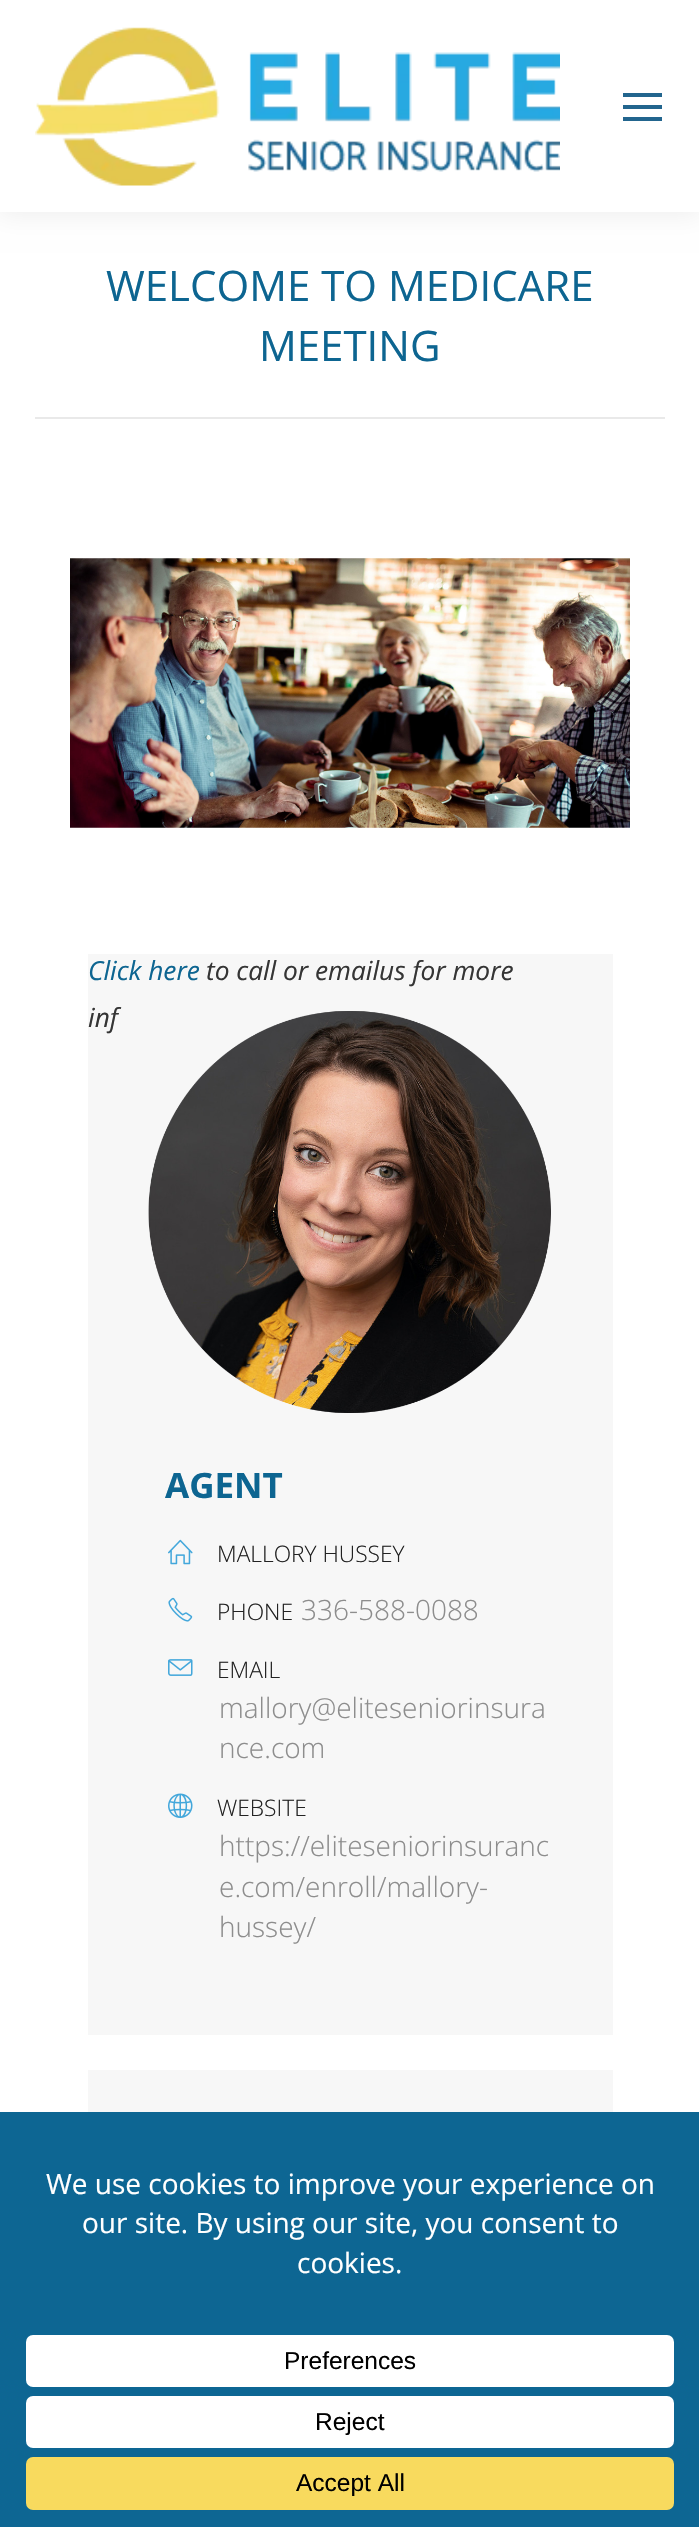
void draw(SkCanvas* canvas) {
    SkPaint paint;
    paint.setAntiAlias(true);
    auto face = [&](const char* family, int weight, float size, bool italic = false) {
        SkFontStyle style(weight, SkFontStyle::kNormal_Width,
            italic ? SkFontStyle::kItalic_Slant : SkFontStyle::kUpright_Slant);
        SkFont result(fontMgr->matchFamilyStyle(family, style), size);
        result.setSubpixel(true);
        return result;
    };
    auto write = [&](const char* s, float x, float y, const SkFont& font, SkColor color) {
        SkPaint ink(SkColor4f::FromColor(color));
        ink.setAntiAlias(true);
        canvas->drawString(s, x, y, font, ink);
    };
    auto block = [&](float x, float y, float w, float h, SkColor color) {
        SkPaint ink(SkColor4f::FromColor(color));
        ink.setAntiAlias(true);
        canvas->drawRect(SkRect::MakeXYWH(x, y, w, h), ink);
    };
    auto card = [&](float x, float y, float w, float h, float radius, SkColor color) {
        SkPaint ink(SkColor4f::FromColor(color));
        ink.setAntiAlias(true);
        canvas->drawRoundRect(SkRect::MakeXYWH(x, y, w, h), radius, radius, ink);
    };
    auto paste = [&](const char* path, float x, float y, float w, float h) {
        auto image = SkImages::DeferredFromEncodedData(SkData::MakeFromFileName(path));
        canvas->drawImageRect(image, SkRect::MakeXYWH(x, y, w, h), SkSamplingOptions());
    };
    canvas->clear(SK_ColorWHITE);
    paint.setColor(SkColorSetARGB(18, 0, 0, 0));
    paint.setMaskFilter(SkMaskFilter::MakeBlur(kNormal_SkBlurStyle, 13));
    canvas->drawRect(SkRect::MakeXYWH(-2, -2, 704, 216), paint);
    paint.setMaskFilter(nullptr);
    block(0, 0, 699, 212, SK_ColorWHITE);
    paste("pic1.png", 35, 27, 525, 159);
    block(623, 93, 39, 4, SkColorSetRGB(34, 101, 142));
    block(623, 105, 39, 4, SkColorSetRGB(34, 101, 142));
    block(623, 117, 39, 4, SkColorSetRGB(34, 101, 142));
    auto kFont1 = face("Open Sans", 400, 42);
    write("WELCOME TO MEDICARE", 106, 301, kFont1, SkColorSetRGB(13, 101, 145));
    write("MEETING", 259, 361, kFont1, SkColorSetRGB(13, 101, 145));
    block(35, 417, 630, 2, SkColorSetRGB(233, 233, 233));
    paste("pic2.png", 70, 558, 560, 270);
    block(88, 954, 525, 1081, SkColorSetRGB(247, 247, 247));
    auto kFont2 = face("Open Sans", 400, 26.25f, true);
    write("Click here", 88, 980, kFont2, SkColorSetRGB(13, 101, 145));
    write("to call or emailus for more", 206, 980, kFont2, SkColorSetRGB(53, 53, 53));
    write("inf", 88, 1027, kFont2, SkColorSetRGB(53, 53, 53));
    paste("pic3.png", 148, 1011, 403, 402);
    auto kFont3 = face("Open Sans", 700, 35);
    write("AGENT", 165, 1498, kFont3, SkColorSetRGB(13, 101, 145));
    paste("pic4.png", 168, 1539, 25, 26);
    auto kFont4 = face("Open Sans", 300, 22.75f);
    write("MALLORY HUSSEY", 217, 1562, kFont4, SkColorSetRGB(34, 34, 34));
    paste("pic5.png", 168, 1597, 25, 25);
    write("PHONE", 217, 1620, kFont4, SkColorSetRGB(34, 34, 34));
    auto kFont5 = face("Open Sans", 300, 28);
    write("336-588-0088", 301, 1620, kFont5, SkColorSetRGB(141, 141, 141));
    paste("pic6.png", 168, 1659, 25, 17);
    write("EMAIL", 217, 1678, kFont4, SkColorSetRGB(34, 34, 34));
    write("mallory@eliteseniorinsura", 219, 1718, kFont5, SkColorSetRGB(141, 141, 141));
    write("nce.com", 219, 1758, kFont5, SkColorSetRGB(141, 141, 141));
    paste("pic7.png", 168, 1793, 25, 25);
    write("WEBSITE", 217, 1816, kFont4, SkColorSetRGB(34, 34, 34));
    write("https://eliteseniorinsuranc", 219, 1856, kFont5, SkColorSetRGB(141, 141, 141));
    write("e.com/enroll/mallory-", 219, 1897, kFont5, SkColorSetRGB(141, 141, 141));
    write("hussey/", 219, 1937, kFont5, SkColorSetRGB(141, 141, 141));
    block(88, 2070, 525, 42, SkColorSetRGB(247, 247, 247));
    block(0, 2112, 699, 415, SkColorSetRGB(13, 102, 147));
    auto kFont6 = face("Open Sans", 400, 28);
    write("We use cookies to improve your experience on", 46, 2194, kFont6, SK_ColorWHITE);
    write("our site. By using our site, you consent to", 82, 2233, kFont6, SK_ColorWHITE);
    write("cookies.", 297, 2273, kFont6, SK_ColorWHITE);
    card(26, 2335, 648, 52, 7, SK_ColorWHITE);
    auto kFont7 = face("Liberation Sans", 400, 24.5f);
    write("Preferences", 284, 2369, kFont7, SK_ColorBLACK);
    card(26, 2396, 648, 52, 7, SK_ColorWHITE);
    write("Reject", 315, 2430, kFont7, SK_ColorBLACK);
    card(26, 2457, 648, 53, 7, SkColorSetRGB(248, 218, 94));
    write("Accept All", 296, 2491, kFont7, SK_ColorBLACK);
}
